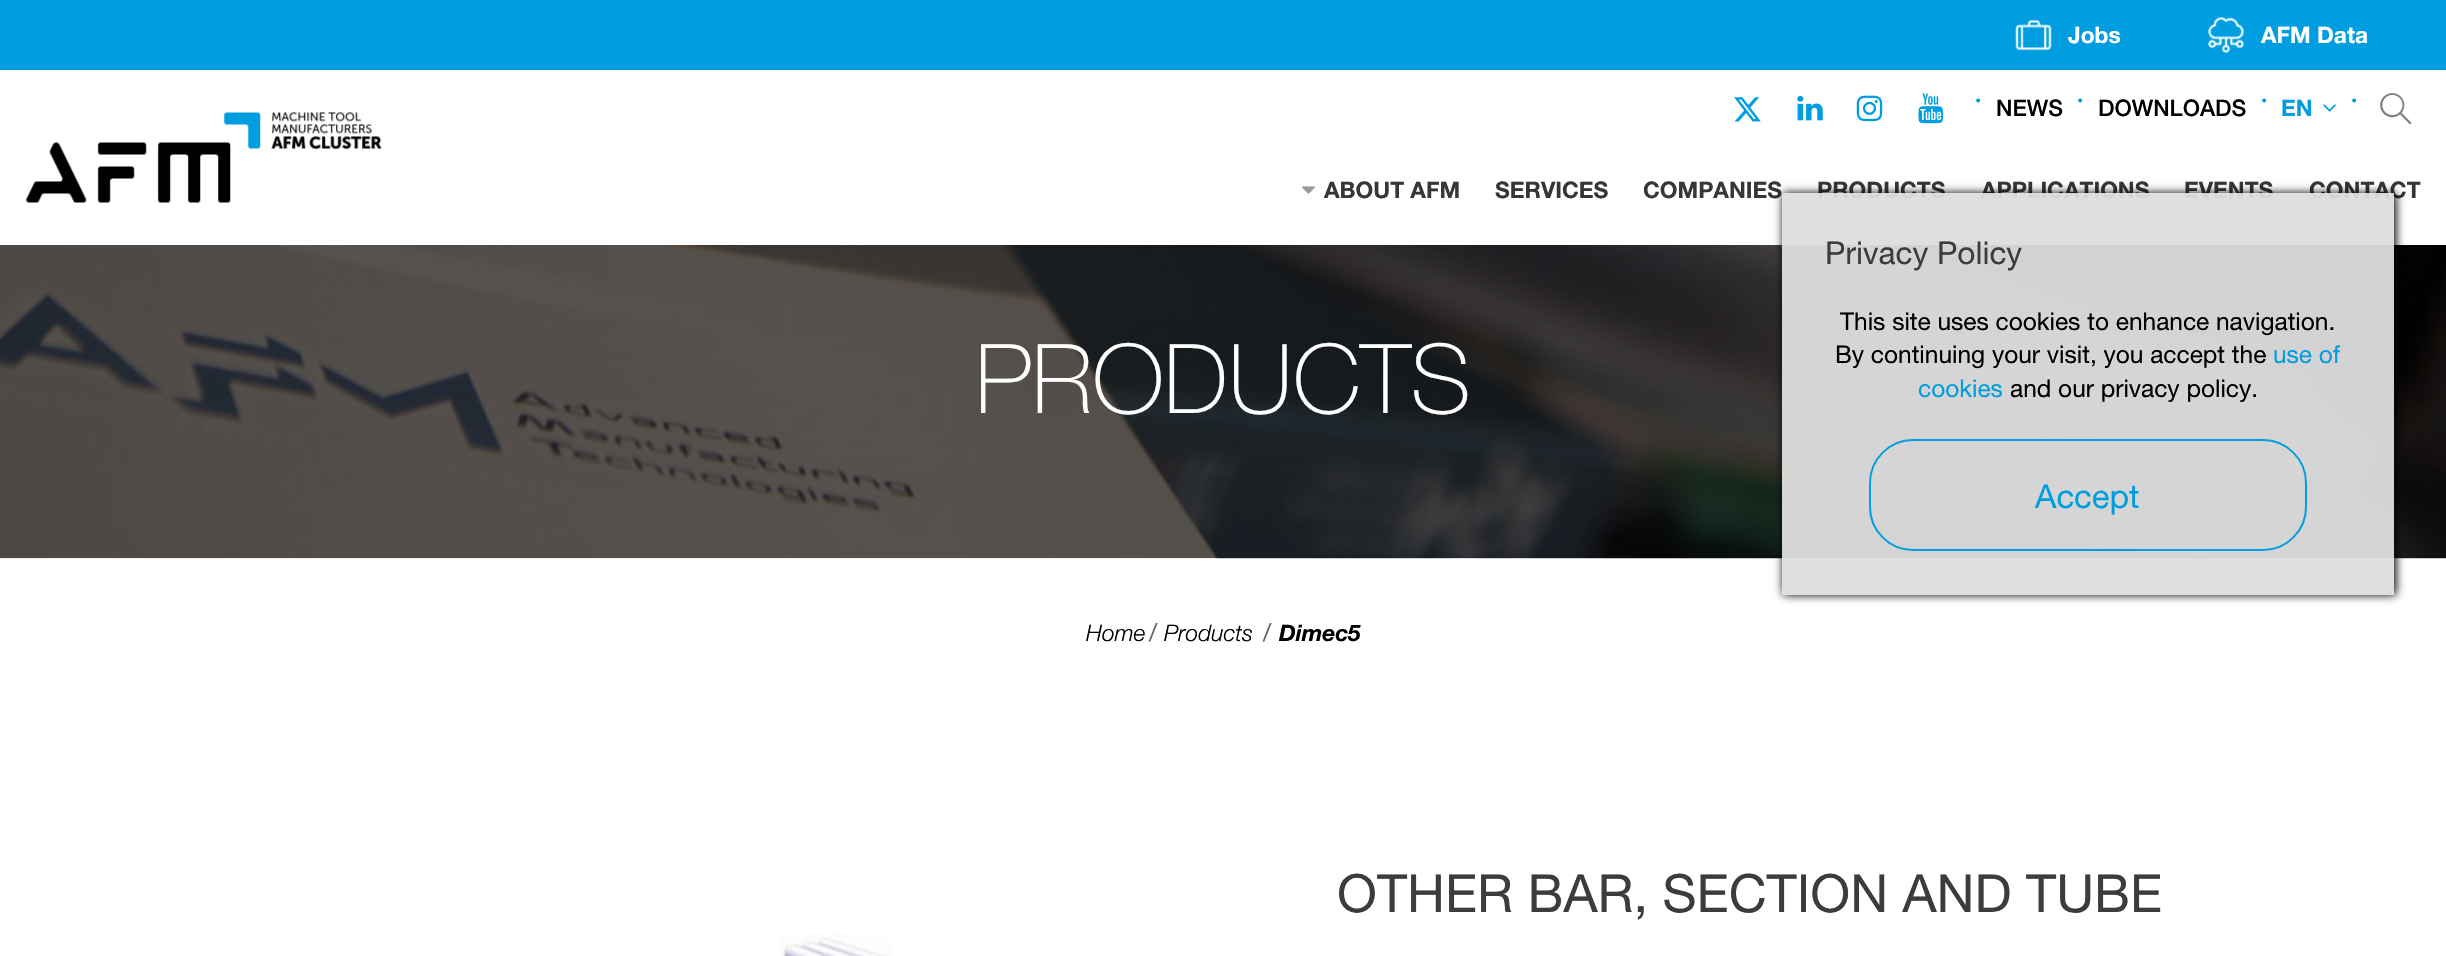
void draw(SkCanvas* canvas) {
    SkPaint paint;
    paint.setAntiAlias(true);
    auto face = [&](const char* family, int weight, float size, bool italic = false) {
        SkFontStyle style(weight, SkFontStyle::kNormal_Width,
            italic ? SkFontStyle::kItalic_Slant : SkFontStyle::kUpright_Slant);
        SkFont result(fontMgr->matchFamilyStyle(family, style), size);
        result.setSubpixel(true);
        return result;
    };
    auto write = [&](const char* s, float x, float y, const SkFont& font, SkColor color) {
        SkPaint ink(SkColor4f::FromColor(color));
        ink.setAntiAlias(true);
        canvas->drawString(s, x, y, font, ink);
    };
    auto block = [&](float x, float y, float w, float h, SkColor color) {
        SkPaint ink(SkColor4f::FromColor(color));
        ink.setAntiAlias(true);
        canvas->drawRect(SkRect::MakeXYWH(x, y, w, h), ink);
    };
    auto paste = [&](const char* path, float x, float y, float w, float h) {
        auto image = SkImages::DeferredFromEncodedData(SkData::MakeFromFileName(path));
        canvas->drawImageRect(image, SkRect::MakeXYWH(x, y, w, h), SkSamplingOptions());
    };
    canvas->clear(SK_ColorWHITE);
    block(0, 0, 2446, 70, SkColorSetRGB(0, 158, 224));
    paste("pic1.png", 2015, 19, 37, 32);
    auto kFont1 = face("Helvetica Neue", 700, 22.75f);
    write("Jobs", 2068, 43, kFont1, SK_ColorWHITE);
    paste("pic2.png", 2208, 17, 37, 36);
    write("AFM Data", 2261, 43, kFont1, SK_ColorWHITE);
    paste("pic3.png", 26, 112, 356, 91);
    paste("pic4.png", 1734, 97, 27, 25);
    paste("pic5.png", 1797, 96, 26, 25);
    paste("pic6.png", 1856, 95, 27, 27);
    paste("pic7.png", 1918, 93, 26, 31);
    write("·", 1975, 107, kFont1, SkColorSetRGB(0, 158, 224));
    auto kFont2 = face("Helvetica Neue", 500, 22.75f);
    write("NEWS", 1996, 116, kFont2, SK_ColorBLACK);
    write("·", 2077, 107, kFont1, SkColorSetRGB(0, 158, 224));
    write("DOWNLOADS", 2098, 116, kFont2, SK_ColorBLACK);
    write("·", 2261, 107, kFont1, SkColorSetRGB(0, 158, 224));
    write("EN", 2281, 116, kFont1, SkColorSetRGB(0, 158, 224));
    paste("pic8.png", 2323, 104, 13, 8);
    write("·", 2351, 107, kFont1, SkColorSetRGB(0, 158, 224));
    paste("pic9.png", 2380, 93, 32, 31);
    paste("pic10.png", 1302, 186, 13, 8);
    write("ABOUT AFM", 1324, 198, kFont1, SkColorSetRGB(54, 54, 54));
    write("SERVICES", 1495, 198, kFont1, SkColorSetRGB(54, 54, 54));
    write("COMPANIES", 1643, 198, kFont1, SkColorSetRGB(54, 54, 54));
    write("PRODUCTS", 1817, 198, kFont1, SkColorSetRGB(54, 54, 54));
    write("APPLICATIONS", 1981, 198, kFont1, SkColorSetRGB(54, 54, 54));
    write("EVENTS", 2184, 198, kFont1, SkColorSetRGB(54, 54, 54));
    write("CONTACT", 2309, 198, kFont1, SkColorSetRGB(54, 54, 54));
    paste("pic11.png", 0, 245, 2446, 314);
    canvas->save();
    canvas->clipPath(SkPathBuilder(SkPathFillType::kEvenOdd).moveTo(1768, 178).lineTo(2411, 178).lineTo(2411, 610).lineTo(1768, 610).close().moveTo(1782, 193).lineTo(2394, 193).lineTo(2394, 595).lineTo(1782, 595).close().detach(), true);
    paint.setColor(SK_ColorBLACK);
    paint.setMaskFilter(SkMaskFilter::MakeBlur(kNormal_SkBlurStyle, 4.5f));
    canvas->drawRect(SkRect::MakeXYWH(1783, 193, 613, 402), paint);
    paint.setMaskFilter(nullptr);
    canvas->restore();
    block(1782, 193, 612, 402, SkColorSetARGB(242, 221, 221, 221));
    auto kFont3 = face("Helvetica Neue", 400, 31.5f);
    write("Privacy Policy", 1825, 264, kFont3, SkColorSetRGB(60, 60, 60));
    auto kFont4 = face("Helvetica Neue", 400, 24.5f);
    write("This site uses cookies to enhance navigation.", 1840, 330, kFont4, SK_ColorBLACK);
    write("By continuing your visit, you accept the", 1835, 363, kFont4, SK_ColorBLACK);
    write("use of", 2273, 363, kFont4, SkColorSetRGB(0, 158, 224));
    write("cookies", 1918, 397, kFont4, SkColorSetRGB(0, 158, 224));
    write("and our privacy policy.", 2010, 397, kFont4, SK_ColorBLACK);
    paint.setStyle(SkPaint::kStroke_Style);
    paint.setStrokeWidth(2);
    paint.setColor(SkColorSetRGB(0, 158, 224));
    canvas->drawRoundRect(SkRect::MakeXYWH(1870, 440, 436, 110), 43, 43, paint);
    auto kFont5 = face("Helvetica Neue", 400, 33);
    write("Accept", 2035, 508, kFont5, SkColorSetRGB(0, 158, 224));
    auto kFont6 = face("Helvetica Neue", 200, 96.25f);
    write("PRODUCTS", 975, 413, kFont6, SK_ColorWHITE);
    auto kFont7 = face("Helvetica Neue", 300, 22.75f, true);
    write("Home", 1086, 641, kFont7, SK_ColorBLACK);
    write("/", 1149, 641, kFont4, SkColorSetRGB(102, 102, 102));
    write("Products", 1164, 641, kFont7, SK_ColorBLACK);
    write("/", 1263, 641, kFont4, SkColorSetRGB(102, 102, 102));
    auto kFont8 = face("Helvetica Neue", 700, 22.75f, true);
    write("Dimec5", 1279, 641, kFont8, SK_ColorBLACK);
    auto kFont9 = face("Helvetica Neue", 400, 52.5f);
    write("OTHER BAR, SECTION AND TUBE", 1337, 912, kFont9, SkColorSetRGB(60, 60, 60));
    paste("pic12.png", 780, 934, 111, 22);
}
